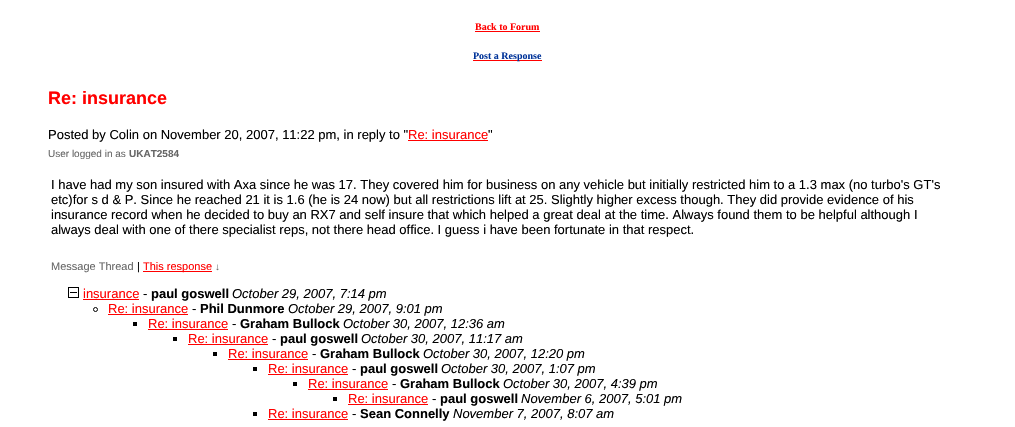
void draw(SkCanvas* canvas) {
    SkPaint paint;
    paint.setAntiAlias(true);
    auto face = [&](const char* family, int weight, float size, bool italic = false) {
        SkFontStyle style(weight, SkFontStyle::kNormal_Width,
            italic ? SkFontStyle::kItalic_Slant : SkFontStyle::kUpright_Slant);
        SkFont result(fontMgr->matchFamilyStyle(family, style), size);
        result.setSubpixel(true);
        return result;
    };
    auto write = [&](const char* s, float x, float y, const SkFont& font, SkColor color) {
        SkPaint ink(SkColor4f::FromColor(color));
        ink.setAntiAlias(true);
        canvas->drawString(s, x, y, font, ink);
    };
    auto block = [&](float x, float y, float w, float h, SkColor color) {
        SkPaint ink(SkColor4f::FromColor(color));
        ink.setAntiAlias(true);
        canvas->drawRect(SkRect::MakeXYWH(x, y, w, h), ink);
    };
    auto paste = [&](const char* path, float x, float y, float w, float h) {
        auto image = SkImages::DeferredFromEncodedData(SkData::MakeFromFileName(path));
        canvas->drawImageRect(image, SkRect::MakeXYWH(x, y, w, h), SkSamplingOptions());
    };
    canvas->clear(SK_ColorWHITE);
    auto kFont1 = face("Liberation Serif", 700, 10);
    write("Back to Forum", 475, 30, kFont1, SkColorSetRGB(255, 0, 0));
    block(475, 31, 65, 1, SkColorSetRGB(255, 0, 0));
    block(473, 60, 69, 1, SkColorSetRGB(255, 0, 0));
    write("Post a Response", 473, 59, kFont1, SkColorSetRGB(0, 51, 153));
    auto kFont2 = face("Liberation Sans", 700, 18);
    write("Re: insurance", 48, 104, kFont2, SkColorSetRGB(255, 0, 0));
    auto kFont3 = face("Liberation Sans", 400, 13);
    write("Posted by Colin on November 20, 2007, 11:22 pm, in reply to \"", 48, 139, kFont3, SK_ColorBLACK);
    block(408, 140, 80, 1, SkColorSetRGB(255, 0, 0));
    write("Re: insurance", 408, 139, kFont3, SkColorSetRGB(255, 0, 0));
    write("\"", 488, 139, kFont3, SK_ColorBLACK);
    auto kFont4 = face("Liberation Sans", 400, 10);
    write("User logged in as", 48, 157, kFont4, SkColorSetRGB(103, 103, 103));
    auto kFont5 = face("Liberation Sans", 700, 10);
    write("UKAT2584", 129, 157, kFont5, SkColorSetRGB(103, 103, 103));
    write("I have had my son insured with Axa since he was 17. They covered him for business on any vehicle but initially restricted him to a 1.3 max (no turbo's GT's", 51, 189, kFont3, SK_ColorBLACK);
    write("etc)for s d & P. Since he reached 21 it is 1.6 (he is 24 now) but all restrictions lift at 25. Slightly higher excess though. They did provide evidence of his", 51, 204, kFont3, SK_ColorBLACK);
    write("insurance record when he decided to buy an RX7 and self insure that which helped a great deal at the time. Always found them to be helpful although I", 51, 219, kFont3, SK_ColorBLACK);
    write("always deal with one of there specialist reps, not there head office. I guess i have been fortunate in that respect.", 51, 234, kFont3, SK_ColorBLACK);
    auto kFont6 = face("Liberation Sans", 400, 11);
    write("Message Thread", 51, 270, kFont6, SkColorSetRGB(103, 103, 103));
    write("|", 137, 270, kFont6, SK_ColorBLACK);
    block(143, 271, 69, 1, SkColorSetRGB(255, 0, 0));
    write("This response", 143, 270, kFont6, SkColorSetRGB(255, 0, 0));
    write("↓", 215, 270, kFont4, SkColorSetRGB(103, 103, 103));
    paste("pic1.png", 68, 287, 11, 11);
    write("insurance", 83, 298, kFont3, SkColorSetRGB(255, 0, 0));
    block(83, 299, 56, 1, SkColorSetRGB(255, 0, 0));
    write("-", 143, 298, kFont3, SK_ColorBLACK);
    auto kFont7 = face("Liberation Sans", 700, 13);
    write("paul goswell", 151, 298, kFont7, SK_ColorBLACK);
    auto kFont8 = face("Liberation Sans", 400, 13, true);
    write("October 29, 2007, 7:14 pm", 232, 298, kFont8, SK_ColorBLACK);
    paint.setStyle(SkPaint::kStroke_Style);
    paint.setStrokeWidth(1);
    paint.setColor(SK_ColorBLACK);
    canvas->drawCircle(95.5f, 309.5f, 2, paint);
    write("Re: insurance", 108, 313, kFont3, SkColorSetRGB(255, 0, 0));
    block(108, 314, 80, 1, SkColorSetRGB(255, 0, 0));
    write("-", 192, 313, kFont3, SK_ColorBLACK);
    write("Phil Dunmore", 200, 313, kFont7, SK_ColorBLACK);
    write("October 29, 2007, 9:01 pm", 288, 313, kFont8, SK_ColorBLACK);
    block(133, 322, 4, 4, SK_ColorBLACK);
    write("Re: insurance", 148, 328, kFont3, SkColorSetRGB(255, 0, 0));
    block(148, 329, 80, 1, SkColorSetRGB(255, 0, 0));
    write("-", 232, 328, kFont3, SK_ColorBLACK);
    write("Graham Bullock", 240, 328, kFont7, SK_ColorBLACK);
    write("October 30, 2007, 12:36 am", 343, 328, kFont8, SK_ColorBLACK);
    block(173, 337, 4, 4, SK_ColorBLACK);
    write("Re: insurance", 188, 343, kFont3, SkColorSetRGB(255, 0, 0));
    block(188, 344, 80, 1, SkColorSetRGB(255, 0, 0));
    write("-", 272, 343, kFont3, SK_ColorBLACK);
    write("paul goswell", 280, 343, kFont7, SK_ColorBLACK);
    write("October 30, 2007, 11:17 am", 361, 343, kFont8, SK_ColorBLACK);
    block(213, 352, 4, 4, SK_ColorBLACK);
    write("Re: insurance", 228, 358, kFont3, SkColorSetRGB(255, 0, 0));
    block(228, 359, 80, 1, SkColorSetRGB(255, 0, 0));
    write("-", 312, 358, kFont3, SK_ColorBLACK);
    write("Graham Bullock", 320, 358, kFont7, SK_ColorBLACK);
    write("October 30, 2007, 12:20 pm", 423, 358, kFont8, SK_ColorBLACK);
    block(253, 367, 4, 4, SK_ColorBLACK);
    write("Re: insurance", 268, 373, kFont3, SkColorSetRGB(255, 0, 0));
    block(268, 374, 80, 1, SkColorSetRGB(255, 0, 0));
    write("-", 352, 373, kFont3, SK_ColorBLACK);
    write("paul goswell", 360, 373, kFont7, SK_ColorBLACK);
    write("October 30, 2007, 1:07 pm", 441, 373, kFont8, SK_ColorBLACK);
    block(293, 382, 4, 4, SK_ColorBLACK);
    write("Re: insurance", 308, 388, kFont3, SkColorSetRGB(255, 0, 0));
    block(308, 389, 80, 1, SkColorSetRGB(255, 0, 0));
    write("-", 392, 388, kFont3, SK_ColorBLACK);
    write("Graham Bullock", 400, 388, kFont7, SK_ColorBLACK);
    write("October 30, 2007, 4:39 pm", 503, 388, kFont8, SK_ColorBLACK);
    block(333, 397, 4, 4, SK_ColorBLACK);
    write("Re: insurance", 348, 403, kFont3, SkColorSetRGB(255, 0, 0));
    block(348, 404, 80, 1, SkColorSetRGB(255, 0, 0));
    write("-", 432, 403, kFont3, SK_ColorBLACK);
    write("paul goswell", 440, 403, kFont7, SK_ColorBLACK);
    write("November 6, 2007, 5:01 pm", 521, 403, kFont8, SK_ColorBLACK);
    block(253, 412, 4, 4, SK_ColorBLACK);
    write("Re: insurance", 268, 418, kFont3, SkColorSetRGB(255, 0, 0));
    block(268, 419, 80, 1, SkColorSetRGB(255, 0, 0));
    write("-", 352, 418, kFont3, SK_ColorBLACK);
    write("Sean Connelly", 360, 418, kFont7, SK_ColorBLACK);
    write("November 7, 2007, 8:07 am", 453, 418, kFont8, SK_ColorBLACK);
}
